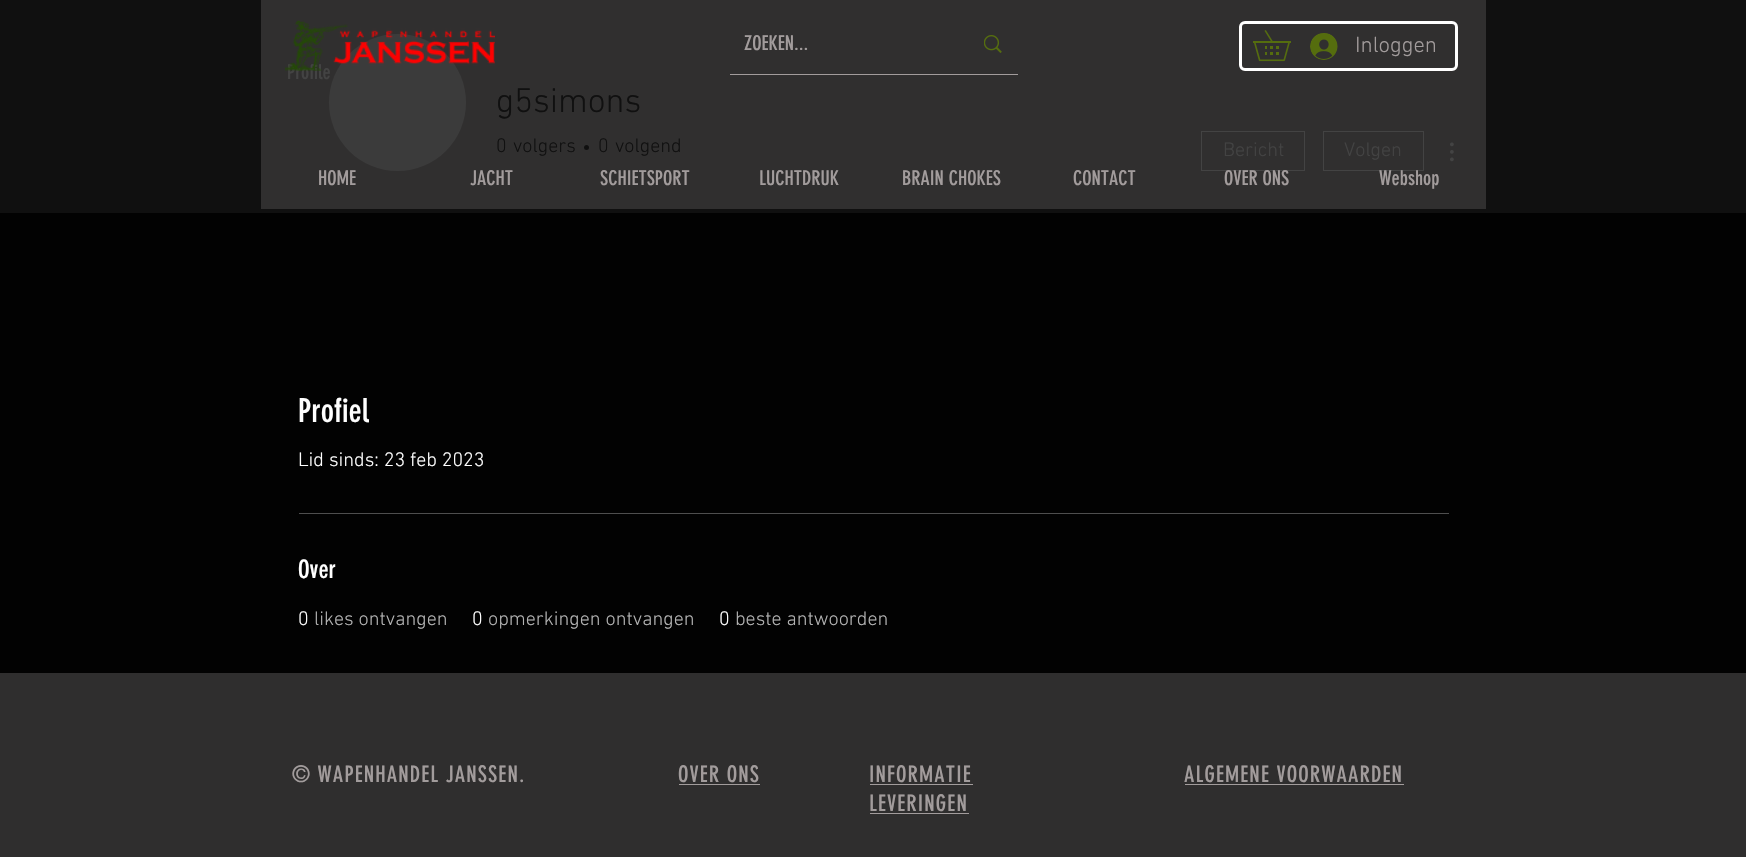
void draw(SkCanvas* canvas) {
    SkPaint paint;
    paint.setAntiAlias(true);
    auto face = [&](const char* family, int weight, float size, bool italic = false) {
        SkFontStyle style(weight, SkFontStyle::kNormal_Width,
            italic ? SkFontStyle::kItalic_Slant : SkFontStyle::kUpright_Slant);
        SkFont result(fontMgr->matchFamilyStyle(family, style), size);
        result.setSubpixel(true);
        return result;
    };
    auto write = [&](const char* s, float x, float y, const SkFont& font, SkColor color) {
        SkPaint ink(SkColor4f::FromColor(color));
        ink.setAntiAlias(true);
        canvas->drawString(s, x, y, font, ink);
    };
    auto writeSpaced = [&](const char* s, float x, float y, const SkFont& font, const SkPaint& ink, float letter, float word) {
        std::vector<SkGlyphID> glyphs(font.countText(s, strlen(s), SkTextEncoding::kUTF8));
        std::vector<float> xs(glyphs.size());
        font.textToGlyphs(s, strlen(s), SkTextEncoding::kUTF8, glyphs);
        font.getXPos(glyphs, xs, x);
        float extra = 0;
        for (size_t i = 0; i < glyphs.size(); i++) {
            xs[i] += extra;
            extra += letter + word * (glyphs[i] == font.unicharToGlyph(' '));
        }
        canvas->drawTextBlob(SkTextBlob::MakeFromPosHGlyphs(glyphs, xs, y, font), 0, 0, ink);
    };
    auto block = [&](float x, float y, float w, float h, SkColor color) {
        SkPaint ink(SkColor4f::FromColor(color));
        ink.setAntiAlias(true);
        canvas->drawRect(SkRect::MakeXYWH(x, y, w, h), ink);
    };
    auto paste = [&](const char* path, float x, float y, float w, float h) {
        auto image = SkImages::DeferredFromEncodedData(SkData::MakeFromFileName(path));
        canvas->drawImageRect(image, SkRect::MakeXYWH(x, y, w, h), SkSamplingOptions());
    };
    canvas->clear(SkColorSetRGB(2, 2, 2));
    block(0, 0, 1746, 213, SkColorSetRGB(16, 16, 16));
    block(261, 0, 1225, 209, SkColorSetRGB(48, 47, 47));
    auto kFont1 = face("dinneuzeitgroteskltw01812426", 400, 20);
    write("Profile", 287, 79, kFont1, SkColorSetRGB(67, 67, 67));
    paint.setColor(SkColorSetRGB(59, 59, 59));
    canvas->drawCircle(397.5f, 102.5f, 68.5f, paint);
    paste("pic1.png", 285, 20, 210, 51);
    block(730, 74, 288, 1, SkColorSetRGB(162, 156, 156));
    write("ZOEKEN...", 744, 50, kFont1, SkColorSetRGB(162, 156, 156));
    paste("pic2.png", 984, 35, 18, 18);
    paint.setStyle(SkPaint::kStroke_Style);
    paint.setStrokeWidth(3);
    paint.setColor(SK_ColorWHITE);
    canvas->drawRoundRect(SkRect::MakeXYWH(1240.5f, 22.5f, 216, 47), 4.5f, 4.5f, paint);
    paste("pic3.png", 1253, 30, 38, 32);
    paste("pic4.png", 1310, 33, 28, 27);
    auto kFont2 = face("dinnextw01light", 300, 22.5f);
    write("Inloggen", 1355, 52, kFont2, SkColorSetRGB(162, 156, 156));
    write("HOME", 318, 185, kFont1, SkColorSetRGB(162, 156, 156));
    write("JACHT", 470, 185, kFont1, SkColorSetRGB(162, 156, 156));
    write("SCHIETSPORT", 600, 185, kFont1, SkColorSetRGB(162, 156, 156));
    write("LUCHTDRUK", 759, 185, kFont1, SkColorSetRGB(162, 156, 156));
    write("BRAIN CHOKES", 902, 185, kFont1, SkColorSetRGB(162, 156, 156));
    write("CONTACT", 1073, 185, kFont1, SkColorSetRGB(162, 156, 156));
    paint.setStrokeWidth(1);
    paint.setColor(SkColorSetRGB(67, 67, 67));
    canvas->drawRect(SkRect::MakeXYWH(1201.5f, 131.5f, 103, 39), paint);
    write("OVER ONS", 1224, 185, kFont1, SkColorSetRGB(162, 156, 156));
    canvas->drawRect(SkRect::MakeXYWH(1323.5f, 131.5f, 100, 39), paint);
    write("Webshop", 1379, 185, kFont1, SkColorSetRGB(162, 156, 156));
    auto kFont3 = face("dinnextw01light", 300, 35);
    write("g5simons", 496, 112, kFont3, SkColorSetRGB(16, 16, 16));
    auto kFont4 = face("dinnextw01light", 300, 20);
    write("0", 496, 152, kFont4, SkColorSetRGB(16, 16, 16));
    write("volgers", 513, 152, kFont4, SkColorSetRGB(16, 16, 16));
    paint.setStyle(SkPaint::kFill_Style);
    paint.setColor(SkColorSetRGB(16, 16, 16));
    canvas->drawCircle(586.5f, 147.5f, 2.5f, paint);
    write("0", 598, 152, kFont4, SkColorSetRGB(16, 16, 16));
    write("volgend", 615, 152, kFont4, SkColorSetRGB(16, 16, 16));
    write("Bericht", 1223, 156, kFont4, SkColorSetRGB(67, 67, 67));
    write("Volgen", 1344, 156, kFont4, SkColorSetRGB(67, 67, 67));
    paste("pic5.png", 1450, 142, 4, 20);
    auto kFont5 = face("dinneuzeitgroteskltw01812426", 400, 32.5f);
    write("Profiel", 298, 422, kFont5, SK_ColorWHITE);
    write("Lid sinds: 23 feb 2023", 298, 466, kFont4, SK_ColorWHITE);
    block(299, 513, 1150, 1, SkColorSetRGB(78, 78, 78));
    auto kFont6 = face("dinneuzeitgroteskltw01812426", 400, 25);
    write("Over", 298, 578, kFont6, SK_ColorWHITE);
    write("0", 298, 625, kFont4, SK_ColorWHITE);
    write("likes ontvangen", 314, 625, kFont4, SkColorSetRGB(179, 179, 179));
    write("0", 472, 625, kFont4, SK_ColorWHITE);
    write("opmerkingen ontvangen", 488, 625, kFont4, SkColorSetRGB(179, 179, 179));
    write("0", 719, 625, kFont4, SK_ColorWHITE);
    write("beste antwoorden", 735, 625, kFont4, SkColorSetRGB(179, 179, 179));
    block(0, 673, 1746, 184, SkColorSetRGB(47, 46, 46));
    auto kFont7 = face("dinneuzeitgroteskltw01812426", 400, 22.5f);
    paint.setColor(SkColorSetRGB(162, 156, 156));
    writeSpaced("© WAPENHANDEL JANSSEN.", 292, 782, kFont7, paint, 1.1f, 0);
    writeSpaced("OVER ONS", 678, 782, kFont7, paint, 1.1f, 0);
    block(679, 784, 81, 1, SkColorSetRGB(162, 156, 156));
    writeSpaced("INFORMATIE", 869, 782, kFont7, paint, 1.1f, 0);
    block(870, 784, 103, 1, SkColorSetRGB(162, 156, 156));
    writeSpaced("LEVERINGEN", 869, 811, kFont7, paint, 1.1f, 0);
    block(870, 813, 99, 1, SkColorSetRGB(162, 156, 156));
    writeSpaced("ALGEMENE VOORWAARDEN", 1184, 782, kFont7, paint, 1.1f, 0);
    block(1185, 784, 219, 1, SkColorSetRGB(162, 156, 156));
}
